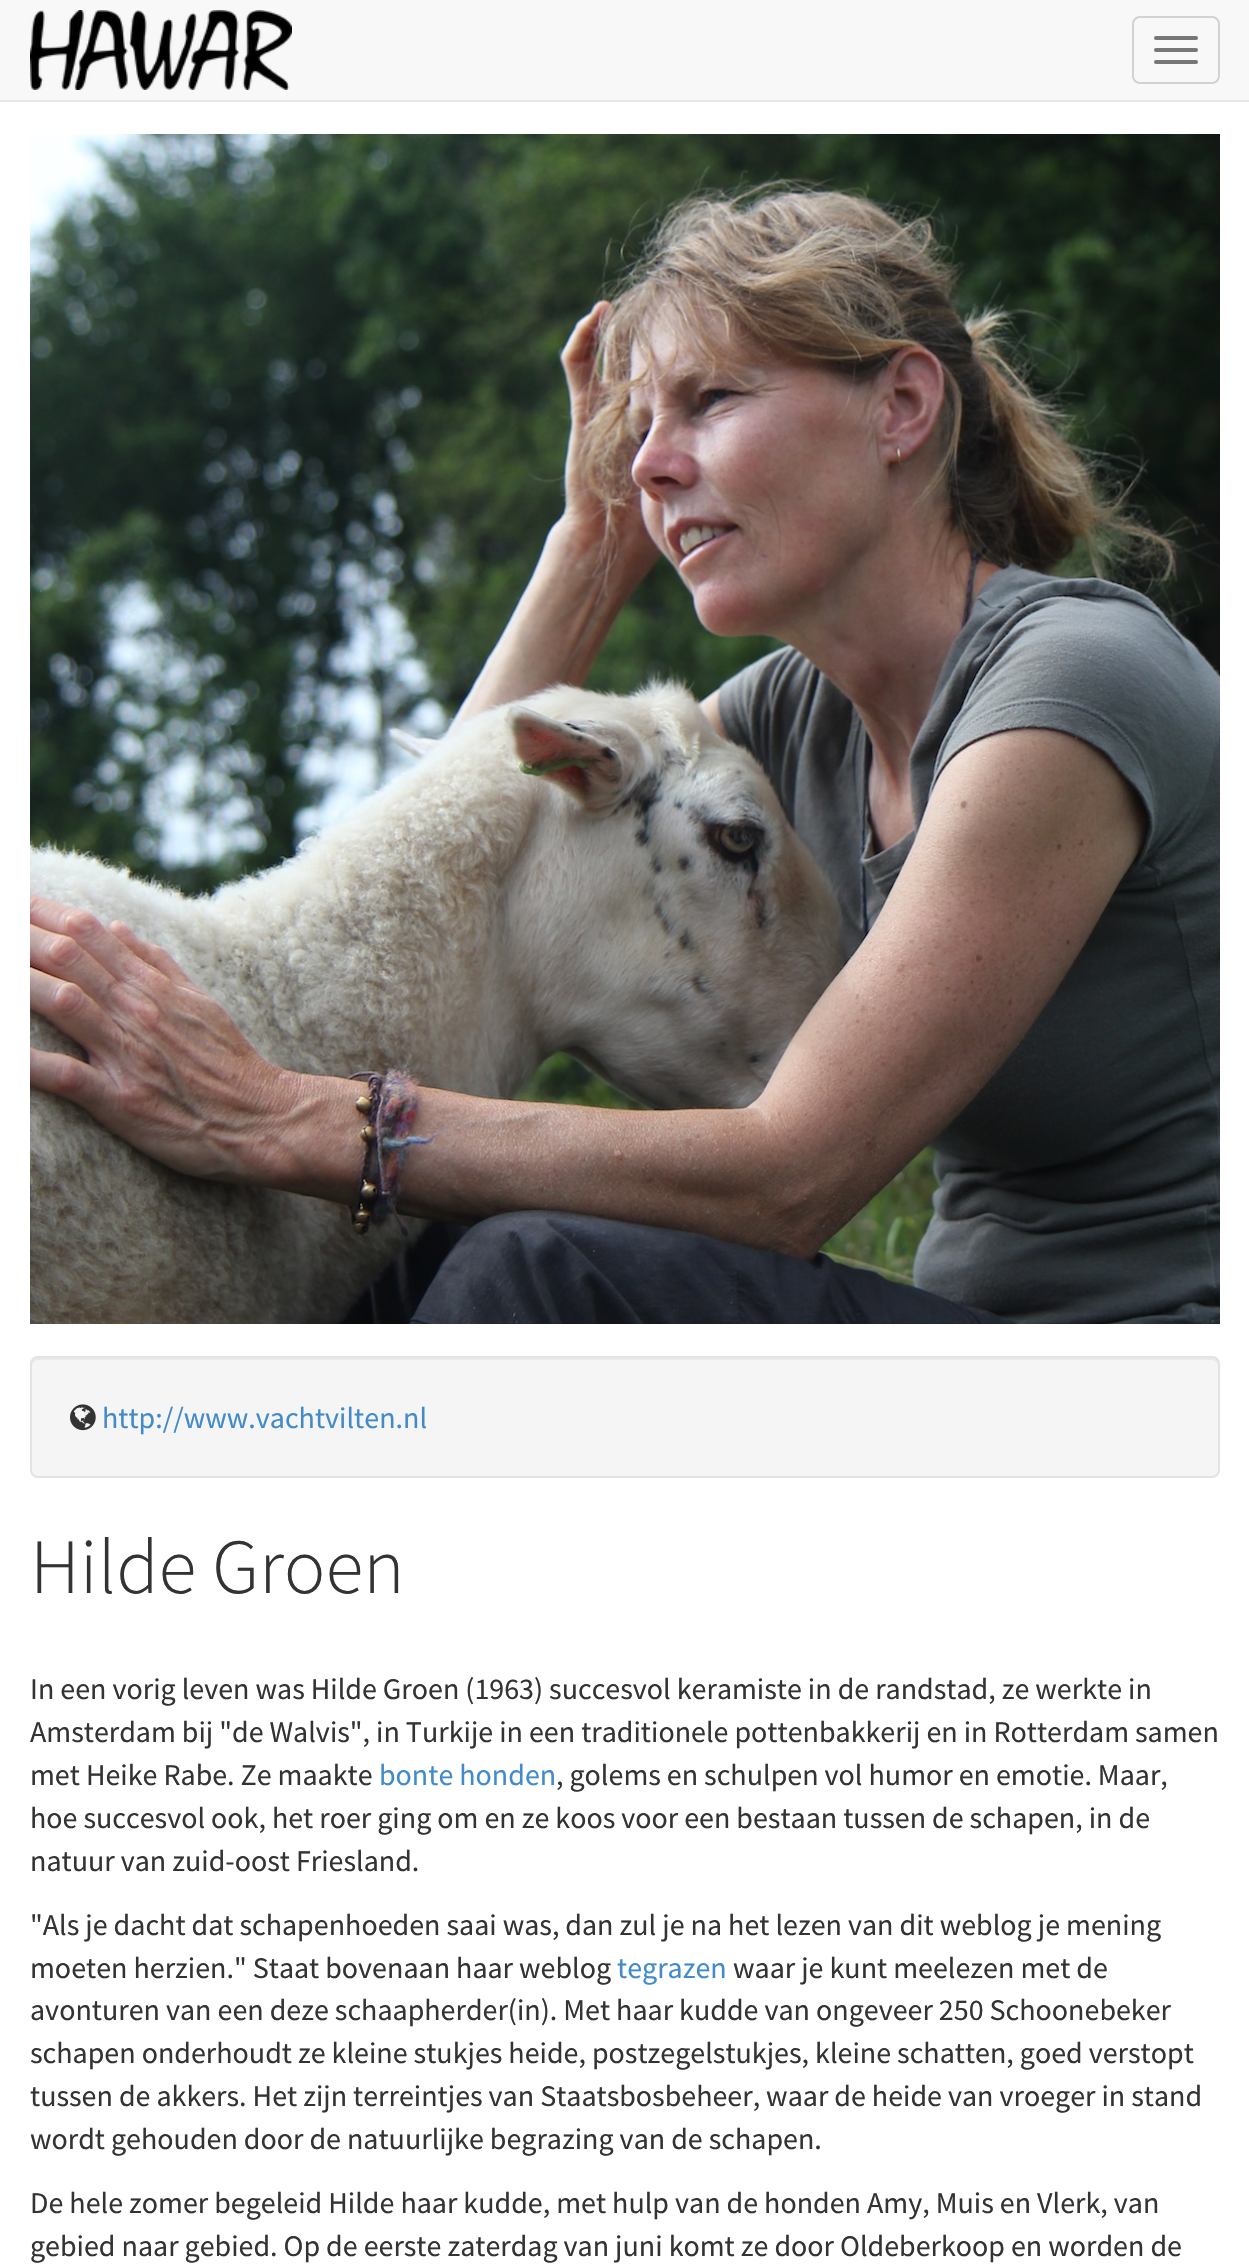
void draw(SkCanvas* canvas) {
    SkPaint paint;
    paint.setAntiAlias(true);
    auto face = [&](const char* family, int weight, float size, bool italic = false) {
        SkFontStyle style(weight, SkFontStyle::kNormal_Width,
            italic ? SkFontStyle::kItalic_Slant : SkFontStyle::kUpright_Slant);
        SkFont result(fontMgr->matchFamilyStyle(family, style), size);
        result.setSubpixel(true);
        return result;
    };
    auto write = [&](const char* s, float x, float y, const SkFont& font, SkColor color) {
        SkPaint ink(SkColor4f::FromColor(color));
        ink.setAntiAlias(true);
        canvas->drawString(s, x, y, font, ink);
    };
    auto block = [&](float x, float y, float w, float h, SkColor color) {
        SkPaint ink(SkColor4f::FromColor(color));
        ink.setAntiAlias(true);
        canvas->drawRect(SkRect::MakeXYWH(x, y, w, h), ink);
    };
    auto card = [&](float x, float y, float w, float h, float radius, SkColor color) {
        SkPaint ink(SkColor4f::FromColor(color));
        ink.setAntiAlias(true);
        canvas->drawRoundRect(SkRect::MakeXYWH(x, y, w, h), radius, radius, ink);
    };
    auto paste = [&](const char* path, float x, float y, float w, float h) {
        auto image = SkImages::DeferredFromEncodedData(SkData::MakeFromFileName(path));
        canvas->drawImageRect(image, SkRect::MakeXYWH(x, y, w, h), SkSamplingOptions());
    };
    canvas->clear(SK_ColorWHITE);
    block(0, 0, 1249, 100, SkColorSetRGB(248, 248, 248));
    block(0, 100, 1249, 2, SkColorSetRGB(231, 231, 231));
    paste("pic1.png", 30, 10, 262, 80);
    paint.setStyle(SkPaint::kStroke_Style);
    paint.setStrokeWidth(2);
    paint.setColor(SkColorSetRGB(210, 210, 210));
    canvas->drawRoundRect(SkRect::MakeXYWH(1133, 17, 86, 66), 7, 7, paint);
    card(1154, 36, 44, 4, 2, SkColorSetRGB(119, 119, 119));
    card(1154, 48, 44, 4, 2, SkColorSetRGB(119, 119, 119));
    card(1154, 60, 44, 4, 2, SkColorSetRGB(119, 119, 119));
    paste("pic2.png", 30, 134, 1190, 1190);
    card(30, 1356, 1190, 122, 8, SkColorSetRGB(245, 245, 245));
    paint.setStyle(SkPaint::kFill_Style);
    paint.setColor(SkColorSetRGB(233, 233, 233));
    canvas->drawPath(SkPathBuilder().moveTo(38, 1360).lineTo(1212, 1360).cubicTo(1215, 1360, 1218, 1363, 1218, 1366).lineTo(1218, 1364).cubicTo(1218, 1361, 1215, 1358, 1212, 1358).lineTo(38, 1358).cubicTo(35, 1358, 32, 1361, 32, 1364).lineTo(32, 1366).cubicTo(32, 1363, 35, 1360, 38, 1360).close().detach(), paint);
    paint.setStyle(SkPaint::kStroke_Style);
    paint.setColor(SkColorSetRGB(227, 227, 227));
    canvas->drawRoundRect(SkRect::MakeXYWH(31, 1357, 1188, 120), 7, 7, paint);
    paste("pic3.png", 70, 1404, 26, 27);
    auto kFont1 = face("Source Sans Pro", 400, 30);
    write("http://www.vachtvilten.nl", 102, 1428, kFont1, SkColorSetRGB(66, 139, 202));
    auto kFont2 = face("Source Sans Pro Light", 300, 78);
    write("Hilde Groen", 30, 1593, kFont2, SkColorSetRGB(51, 51, 51));
    write("In een vorig leven was Hilde Groen (1963) succesvol keramiste in de randstad, ze werkte in", 30, 1699, kFont1, SkColorSetRGB(51, 51, 51));
    write("Amsterdam bij \"de Walvis\", in Turkije in een traditionele pottenbakkerij en in Rotterdam samen", 30, 1742, kFont1, SkColorSetRGB(51, 51, 51));
    write("met Heike Rabe. Ze maakte", 30, 1785, kFont1, SkColorSetRGB(51, 51, 51));
    write("bonte honden", 379, 1785, kFont1, SkColorSetRGB(66, 139, 202));
    write(", golems en schulpen vol humor en emotie. Maar,", 556, 1785, kFont1, SkColorSetRGB(51, 51, 51));
    write("hoe succesvol ook, het roer ging om en ze koos voor een bestaan tussen de schapen, in de", 30, 1828, kFont1, SkColorSetRGB(51, 51, 51));
    write("natuur van zuid-oost Friesland.", 30, 1871, kFont1, SkColorSetRGB(51, 51, 51));
    write("\"Als je dacht dat schapenhoeden saai was, dan zul je na het lezen van dit weblog je mening", 30, 1935, kFont1, SkColorSetRGB(51, 51, 51));
    write("moeten herzien.\" Staat bovenaan haar weblog", 30, 1978, kFont1, SkColorSetRGB(51, 51, 51));
    write("tegrazen", 617, 1978, kFont1, SkColorSetRGB(66, 139, 202));
    write("waar je kunt meelezen met de", 733, 1978, kFont1, SkColorSetRGB(51, 51, 51));
    write("avonturen van een deze schaapherder(in). Met haar kudde van ongeveer 250 Schoonebeker", 30, 2020, kFont1, SkColorSetRGB(51, 51, 51));
    write("schapen onderhoudt ze kleine stukjes heide, postzegelstukjes, kleine schatten, goed verstopt", 30, 2063, kFont1, SkColorSetRGB(51, 51, 51));
    write("tussen de akkers. Het zijn terreintjes van Staatsbosbeheer, waar de heide van vroeger in stand", 30, 2106, kFont1, SkColorSetRGB(51, 51, 51));
    write("wordt gehouden door de natuurlijke begrazing van de schapen.", 30, 2149, kFont1, SkColorSetRGB(51, 51, 51));
    write("De hele zomer begeleid Hilde haar kudde, met hulp van de honden Amy, Muis en Vlerk, van", 30, 2213, kFont1, SkColorSetRGB(51, 51, 51));
    write("gebied naar gebied. Op de eerste zaterdag van juni komt ze door Oldeberkoop en worden de", 30, 2256, kFont1, SkColorSetRGB(51, 51, 51));
}
